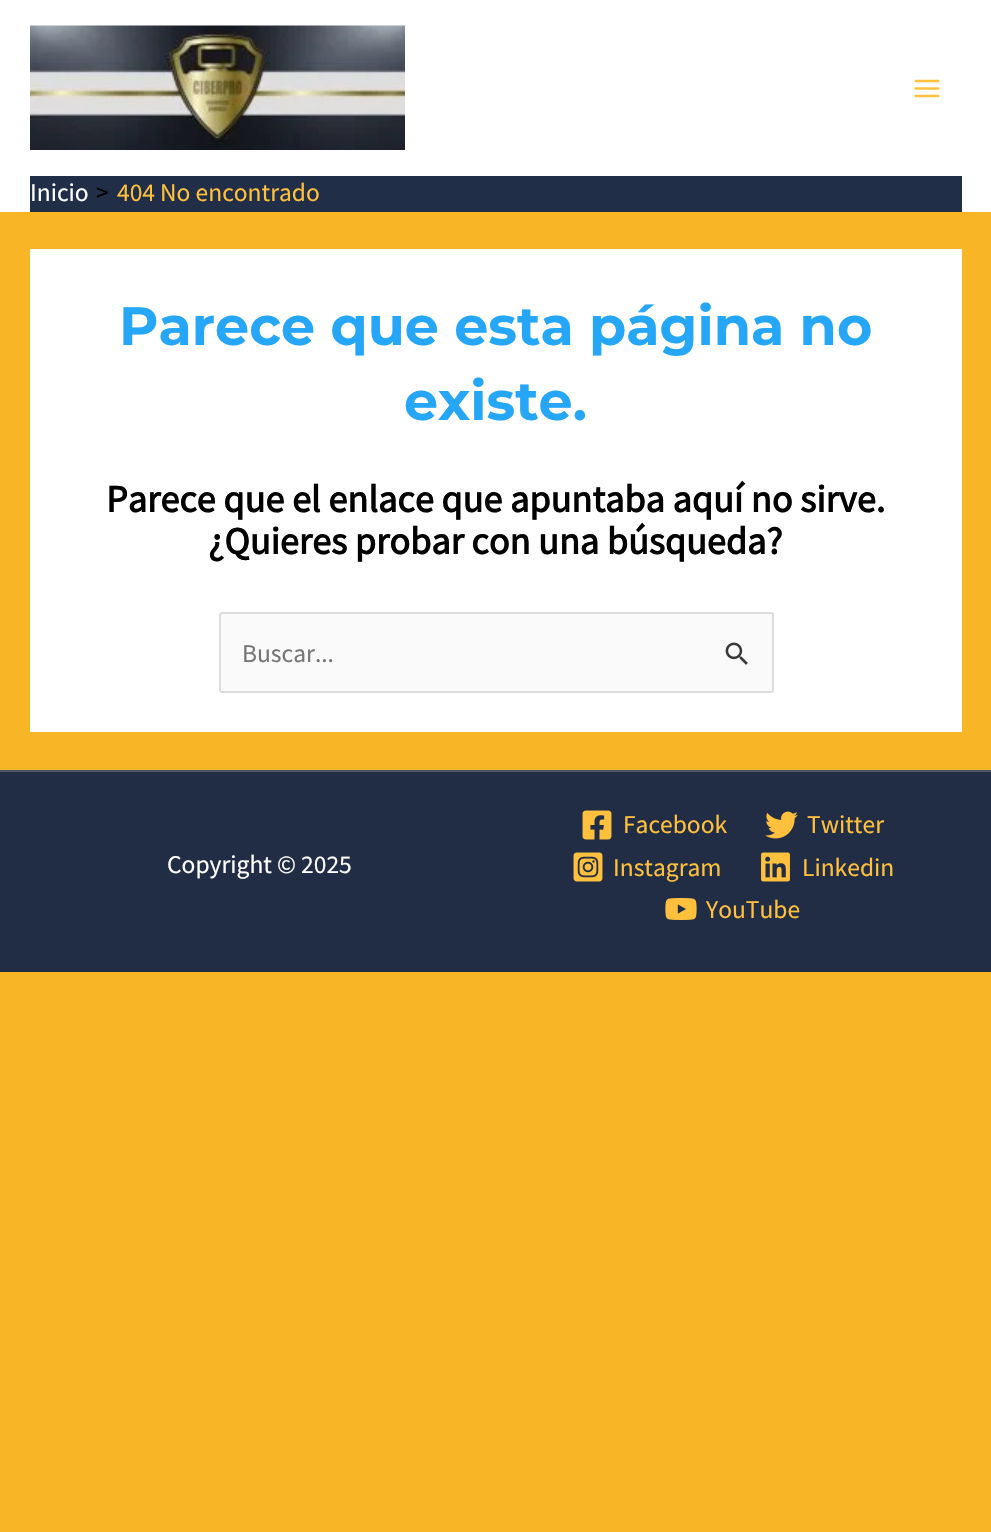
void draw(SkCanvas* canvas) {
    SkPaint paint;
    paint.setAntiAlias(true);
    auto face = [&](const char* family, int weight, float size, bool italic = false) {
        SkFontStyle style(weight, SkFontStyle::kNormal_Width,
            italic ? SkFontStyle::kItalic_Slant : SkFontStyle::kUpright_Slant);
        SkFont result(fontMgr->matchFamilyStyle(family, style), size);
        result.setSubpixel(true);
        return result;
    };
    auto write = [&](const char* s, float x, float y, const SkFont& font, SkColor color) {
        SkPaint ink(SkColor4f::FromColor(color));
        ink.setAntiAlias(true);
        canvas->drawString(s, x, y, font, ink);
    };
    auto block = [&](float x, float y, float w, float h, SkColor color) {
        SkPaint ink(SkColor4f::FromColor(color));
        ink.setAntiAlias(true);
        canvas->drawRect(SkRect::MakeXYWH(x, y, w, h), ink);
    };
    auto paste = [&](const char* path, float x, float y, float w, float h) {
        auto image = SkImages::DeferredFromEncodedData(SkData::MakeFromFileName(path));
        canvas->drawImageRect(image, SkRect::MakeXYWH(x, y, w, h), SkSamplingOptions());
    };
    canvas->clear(SkColorSetRGB(248, 181, 38));
    block(0, 0, 991, 212, SK_ColorWHITE);
    paste("pic1.png", 30, 25, 375, 125);
    paste("pic2.png", 914, 79, 26, 19);
    block(30, 176, 932, 36, SkColorSetRGB(32, 46, 72));
    auto kFont1 = face("Source Sans Pro", 400, 25.5f);
    write("Inicio", 30, 201, kFont1, SK_ColorWHITE);
    write(">", 96, 201, kFont1, SK_ColorBLACK);
    write("404 No encontrado", 117, 201, kFont1, SkColorSetRGB(255, 192, 61));
    block(30, 249, 932, 483, SK_ColorWHITE);
    auto kFont2 = face("Montserrat", 100, 54);
    write("Parece que esta página no", 119, 345, kFont2, SkColorSetRGB(37, 166, 247));
    write("existe.", 404, 420, kFont2, SkColorSetRGB(37, 166, 247));
    auto kFont3 = face("Source Sans Pro", 700, 38.25f);
    write("Parece que el enlace que apuntaba aquí no sirve.", 106, 512, kFont3, SK_ColorBLACK);
    write("¿Quieres probar con una búsqueda?", 208, 554, kFont3, SK_ColorBLACK);
    paint.setColor(SkColorSetRGB(250, 250, 250));
    canvas->drawRoundRect(SkRect::MakeXYWH(220, 613, 553, 79), 2, 2, paint);
    paint.setStyle(SkPaint::kStroke_Style);
    paint.setStrokeWidth(2);
    paint.setColor(SkColorSetRGB(221, 221, 221));
    canvas->drawRoundRect(SkRect::MakeXYWH(220, 613, 553, 79), 2, 2, paint);
    write("Buscar...", 242, 662, kFont1, SkColorSetRGB(117, 117, 117));
    paste("pic3.png", 725, 642, 23, 23);
    block(0, 772, 991, 200, SkColorSetRGB(33, 45, 69));
    block(0, 770, 991, 2, SkColorSetRGB(77, 85, 102));
    write("Copyright © 2025", 167, 873, kFont1, SK_ColorWHITE);
    paste("pic4.png", 582, 810, 30, 30);
    write("Facebook", 623, 833, kFont1, SkColorSetRGB(255, 192, 61));
    paste("pic5.png", 765, 811, 33, 28);
    write("Twitter", 807, 833, kFont1, SkColorSetRGB(255, 192, 61));
    paste("pic6.png", 573, 852, 30, 30);
    write("Instagram", 613, 876, kFont1, SkColorSetRGB(255, 192, 61));
    paste("pic7.png", 761, 852, 29, 30);
    write("Linkedin", 802, 876, kFont1, SkColorSetRGB(255, 192, 61));
    paste("pic8.png", 665, 898, 32, 22);
    write("YouTube", 706, 918, kFont1, SkColorSetRGB(255, 192, 61));
}
